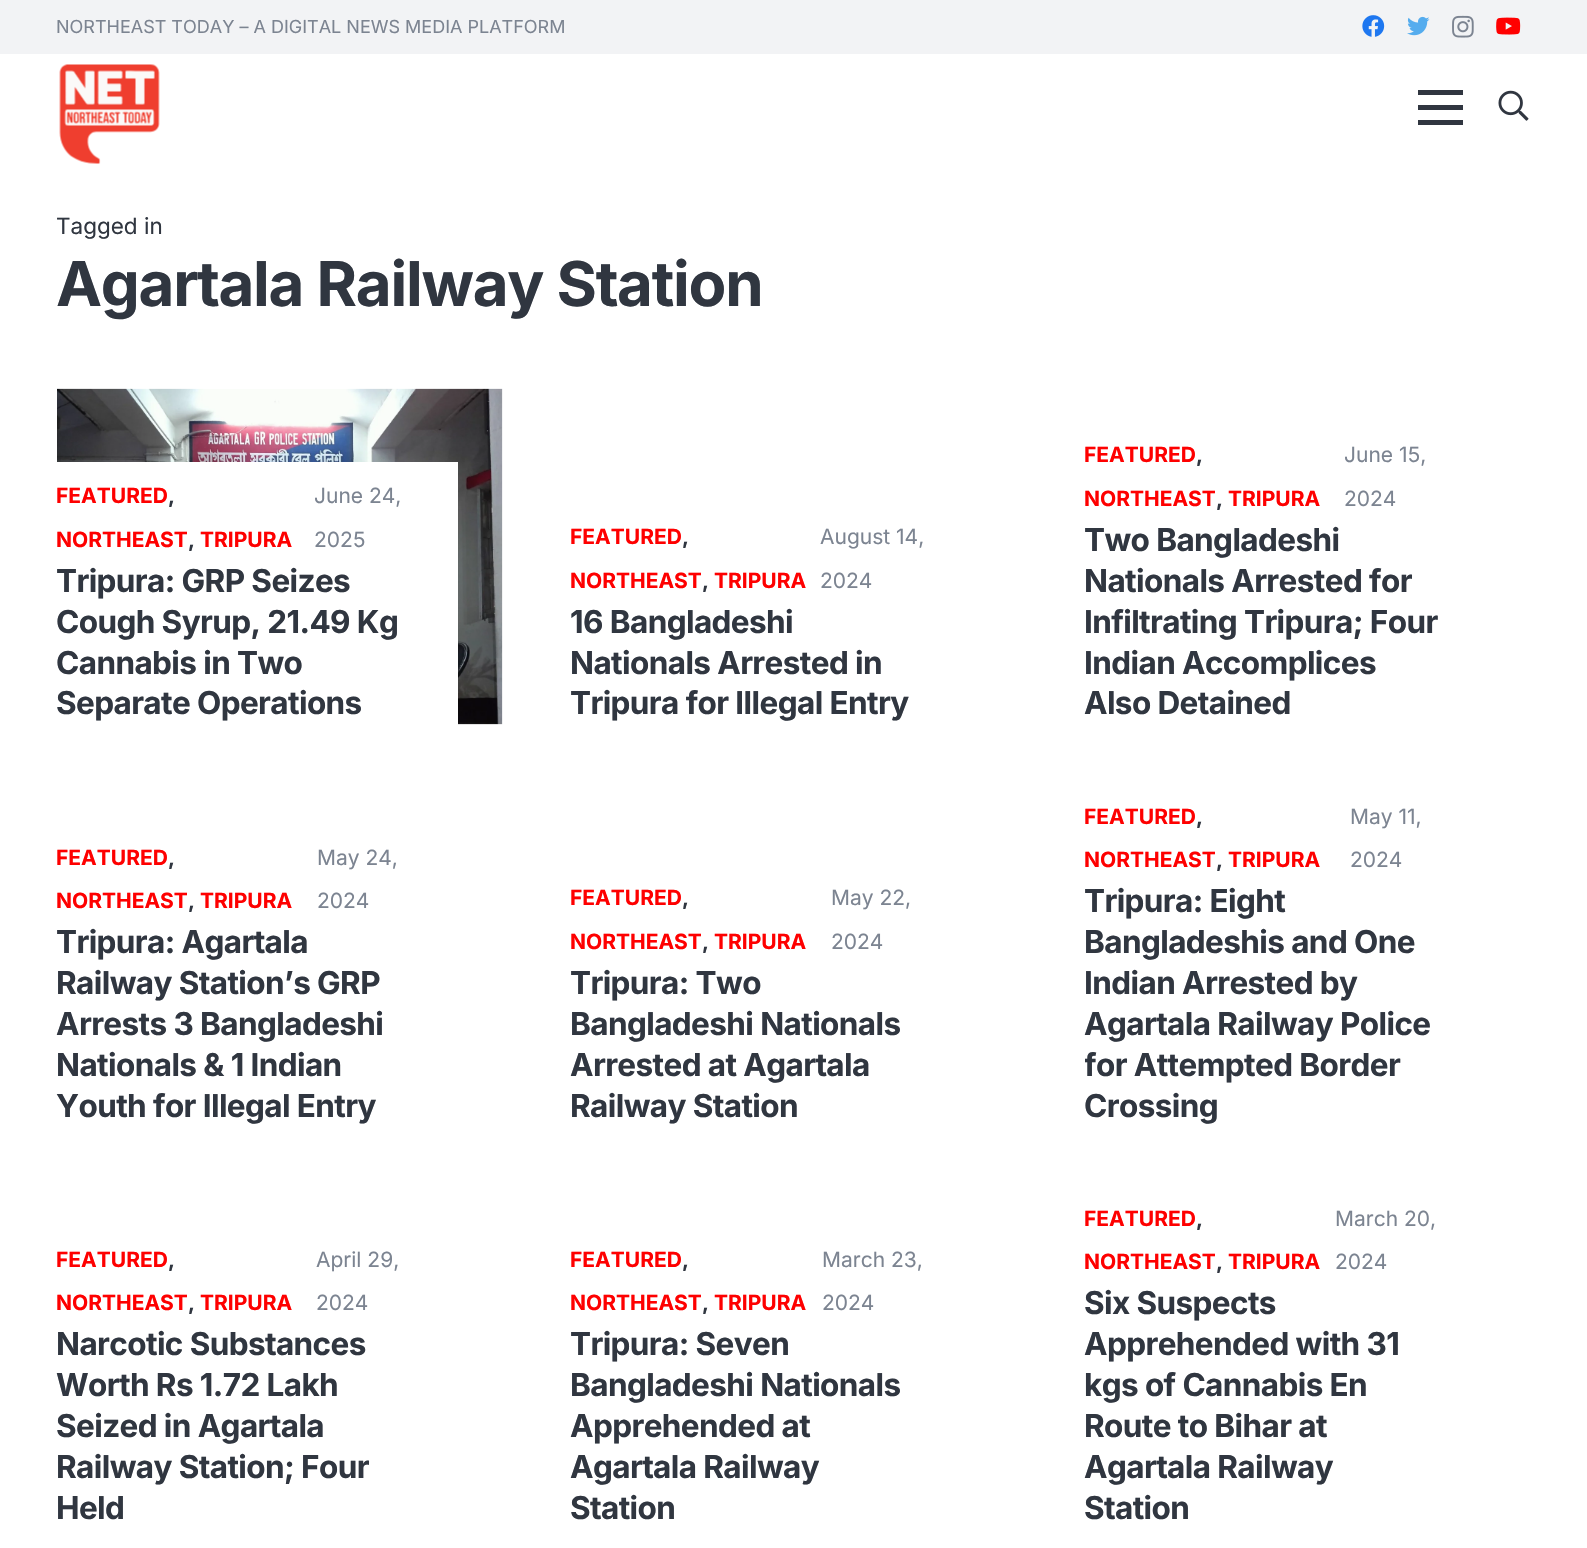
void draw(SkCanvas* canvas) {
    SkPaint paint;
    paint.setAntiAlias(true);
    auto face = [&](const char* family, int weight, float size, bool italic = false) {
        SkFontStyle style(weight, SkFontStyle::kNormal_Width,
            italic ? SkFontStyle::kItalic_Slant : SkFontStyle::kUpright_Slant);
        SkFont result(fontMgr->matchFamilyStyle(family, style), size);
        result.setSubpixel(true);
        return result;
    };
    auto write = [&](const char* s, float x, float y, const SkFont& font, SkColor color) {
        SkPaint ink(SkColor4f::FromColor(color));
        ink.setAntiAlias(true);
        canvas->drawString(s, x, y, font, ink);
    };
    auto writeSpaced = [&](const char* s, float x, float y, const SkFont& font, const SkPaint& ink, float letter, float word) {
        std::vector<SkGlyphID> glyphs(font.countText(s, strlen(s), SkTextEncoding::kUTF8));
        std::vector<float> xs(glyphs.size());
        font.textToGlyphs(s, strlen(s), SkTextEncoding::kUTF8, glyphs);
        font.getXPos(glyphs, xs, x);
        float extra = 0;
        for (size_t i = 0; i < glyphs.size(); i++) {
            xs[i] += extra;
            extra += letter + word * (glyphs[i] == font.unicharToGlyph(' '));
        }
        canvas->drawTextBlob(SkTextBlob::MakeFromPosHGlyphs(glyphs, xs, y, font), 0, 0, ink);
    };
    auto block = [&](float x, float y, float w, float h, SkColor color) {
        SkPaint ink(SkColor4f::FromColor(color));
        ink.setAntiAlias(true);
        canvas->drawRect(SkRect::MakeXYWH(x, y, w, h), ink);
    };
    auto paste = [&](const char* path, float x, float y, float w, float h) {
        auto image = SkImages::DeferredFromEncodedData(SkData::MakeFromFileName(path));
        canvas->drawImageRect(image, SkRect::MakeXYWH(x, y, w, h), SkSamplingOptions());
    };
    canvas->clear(SK_ColorWHITE);
    block(0, 0, 1587, 54, SkColorSetRGB(242, 243, 245));
    auto kFont1 = face("Inter", 400, 18);
    write("NORTHEAST TODAY – A DIGITAL NEWS MEDIA PLATFORM", 56, 33, kFont1, SkColorSetRGB(124, 132, 145));
    paste("pic1.png", 1362, 15, 23, 22);
    paste("pic2.png", 1407, 16, 23, 20);
    paste("pic3.png", 1452, 15, 22, 23);
    paste("pic4.png", 1496, 17, 25, 18);
    paste("pic5.png", 59, 64, 101, 100);
    block(1418, 105, 45, 5, SkColorSetRGB(48, 54, 64));
    block(1418, 90, 45, 5, SkColorSetRGB(48, 54, 64));
    block(1418, 120, 45, 5, SkColorSetRGB(48, 54, 64));
    paste("pic6.png", 1498, 90, 31, 31);
    auto kFont2 = face("Inter", 400, 22.5f);
    write("Tagged in", 56, 234, kFont2, SkColorSetRGB(48, 54, 64));
    auto kFont3 = face("Inter", 700, 61.75f);
    paint.setColor(SkColorSetRGB(48, 54, 64));
    writeSpaced("Agartala Railway Station", 56, 306, kFont3, paint, -1.25f, 0);
    paste("pic7.png", 57, 388, 446, 337);
    block(57, 462, 401, 263, SK_ColorWHITE);
    auto kFont4 = face("Inter", 700, 21);
    write("FEATURED", 56, 503, kFont4, SkColorSetRGB(254, 0, 0));
    write(",", 168, 503, kFont4, SkColorSetRGB(48, 54, 64));
    write("NORTHEAST", 56, 547, kFont4, SkColorSetRGB(254, 0, 0));
    write(",", 188, 547, kFont4, SkColorSetRGB(48, 54, 64));
    write("TRIPURA", 200, 547, kFont4, SkColorSetRGB(254, 0, 0));
    auto kFont5 = face("Inter", 400, 21);
    write("June 24,", 314, 503, kFont5, SkColorSetRGB(124, 132, 145));
    write("2025", 314, 547, kFont5, SkColorSetRGB(124, 132, 145));
    auto kFont6 = face("Inter", 700, 31.5f);
    writeSpaced("Tripura: GRP Seizes", 56, 592, kFont6, paint, -0.6f, 0);
    writeSpaced("Cough Syrup, 21.49 Kg", 56, 633, kFont6, paint, -0.6f, 0);
    writeSpaced("Cannabis in Two", 56, 674, kFont6, paint, -0.6f, 0);
    writeSpaced("Separate Operations", 56, 714, kFont6, paint, -0.6f, 0);
    write("FEATURED", 570, 544, kFont4, SkColorSetRGB(254, 0, 0));
    write(",", 682, 544, kFont4, SkColorSetRGB(48, 54, 64));
    write("NORTHEAST", 570, 588, kFont4, SkColorSetRGB(254, 0, 0));
    write(",", 702, 588, kFont4, SkColorSetRGB(48, 54, 64));
    write("TRIPURA", 714, 588, kFont4, SkColorSetRGB(254, 0, 0));
    write("August 14,", 820, 544, kFont5, SkColorSetRGB(124, 132, 145));
    write("2024", 820, 588, kFont5, SkColorSetRGB(124, 132, 145));
    writeSpaced("16 Bangladeshi", 570, 633, kFont6, paint, -0.6f, 0);
    writeSpaced("Nationals Arrested in", 570, 674, kFont6, paint, -0.6f, 0);
    writeSpaced("Tripura for Illegal Entry", 570, 714, kFont6, paint, -0.6f, 0);
    write("FEATURED", 1084, 462, kFont4, SkColorSetRGB(254, 0, 0));
    write(",", 1196, 462, kFont4, SkColorSetRGB(48, 54, 64));
    write("NORTHEAST", 1084, 506, kFont4, SkColorSetRGB(254, 0, 0));
    write(",", 1216, 506, kFont4, SkColorSetRGB(48, 54, 64));
    write("TRIPURA", 1228, 506, kFont4, SkColorSetRGB(254, 0, 0));
    write("June 15,", 1344, 462, kFont5, SkColorSetRGB(124, 132, 145));
    write("2024", 1344, 506, kFont5, SkColorSetRGB(124, 132, 145));
    writeSpaced("Two Bangladeshi", 1084, 551, kFont6, paint, -0.6f, 0);
    writeSpaced("Nationals Arrested for", 1084, 592, kFont6, paint, -0.6f, 0);
    writeSpaced("Infiltrating Tripura; Four", 1084, 633, kFont6, paint, -0.6f, 0);
    writeSpaced("Indian Accomplices", 1084, 674, kFont6, paint, -0.6f, 0);
    writeSpaced("Also Detained", 1084, 714, kFont6, paint, -0.6f, 0);
    write("FEATURED", 56, 865, kFont4, SkColorSetRGB(254, 0, 0));
    write(",", 168, 865, kFont4, SkColorSetRGB(48, 54, 64));
    write("NORTHEAST", 56, 908, kFont4, SkColorSetRGB(254, 0, 0));
    write(",", 188, 908, kFont4, SkColorSetRGB(48, 54, 64));
    write("TRIPURA", 200, 908, kFont4, SkColorSetRGB(254, 0, 0));
    write("May 24,", 317, 865, kFont5, SkColorSetRGB(124, 132, 145));
    write("2024", 317, 908, kFont5, SkColorSetRGB(124, 132, 145));
    writeSpaced("Tripura: Agartala", 56, 953, kFont6, paint, -0.6f, 0);
    writeSpaced("Railway Station’s GRP", 56, 994, kFont6, paint, -0.6f, 0);
    writeSpaced("Arrests 3 Bangladeshi", 56, 1035, kFont6, paint, -0.6f, 0);
    writeSpaced("Nationals & 1 Indian", 56, 1076, kFont6, paint, -0.6f, 0);
    writeSpaced("Youth for Illegal Entry", 56, 1117, kFont6, paint, -0.6f, 0);
    write("FEATURED", 570, 905, kFont4, SkColorSetRGB(254, 0, 0));
    write(",", 682, 905, kFont4, SkColorSetRGB(48, 54, 64));
    write("NORTHEAST", 570, 949, kFont4, SkColorSetRGB(254, 0, 0));
    write(",", 702, 949, kFont4, SkColorSetRGB(48, 54, 64));
    write("TRIPURA", 714, 949, kFont4, SkColorSetRGB(254, 0, 0));
    write("May 22,", 831, 905, kFont5, SkColorSetRGB(124, 132, 145));
    write("2024", 831, 949, kFont5, SkColorSetRGB(124, 132, 145));
    writeSpaced("Tripura: Two", 570, 994, kFont6, paint, -0.6f, 0);
    writeSpaced("Bangladeshi Nationals", 570, 1035, kFont6, paint, -0.6f, 0);
    writeSpaced("Arrested at Agartala", 570, 1076, kFont6, paint, -0.6f, 0);
    writeSpaced("Railway Station", 570, 1117, kFont6, paint, -0.6f, 0);
    write("FEATURED", 1084, 824, kFont4, SkColorSetRGB(254, 0, 0));
    write(",", 1196, 824, kFont4, SkColorSetRGB(48, 54, 64));
    write("NORTHEAST", 1084, 867, kFont4, SkColorSetRGB(254, 0, 0));
    write(",", 1216, 867, kFont4, SkColorSetRGB(48, 54, 64));
    write("TRIPURA", 1228, 867, kFont4, SkColorSetRGB(254, 0, 0));
    write("May 11,", 1350, 824, kFont5, SkColorSetRGB(124, 132, 145));
    write("2024", 1350, 867, kFont5, SkColorSetRGB(124, 132, 145));
    writeSpaced("Tripura: Eight", 1084, 912, kFont6, paint, -0.6f, 0);
    writeSpaced("Bangladeshis and One", 1084, 953, kFont6, paint, -0.6f, 0);
    writeSpaced("Indian Arrested by", 1084, 994, kFont6, paint, -0.6f, 0);
    writeSpaced("Agartala Railway Police", 1084, 1035, kFont6, paint, -0.6f, 0);
    canvas->save();
    canvas->clipRect(SkRect::MakeXYWH(1085, 792, 445, 335));
    writeSpaced("for Attempted Border", 1084, 1076, kFont6, paint, -0.6f, 0);
    canvas->restore();
    writeSpaced("Crossing", 1084, 1117, kFont6, paint, -0.6f, 0);
    write("FEATURED", 56, 1267, kFont4, SkColorSetRGB(254, 0, 0));
    write(",", 168, 1267, kFont4, SkColorSetRGB(48, 54, 64));
    write("NORTHEAST", 56, 1310, kFont4, SkColorSetRGB(254, 0, 0));
    write(",", 188, 1310, kFont4, SkColorSetRGB(48, 54, 64));
    write("TRIPURA", 200, 1310, kFont4, SkColorSetRGB(254, 0, 0));
    write("April 29,", 316, 1267, kFont5, SkColorSetRGB(124, 132, 145));
    write("2024", 316, 1310, kFont5, SkColorSetRGB(124, 132, 145));
    writeSpaced("Narcotic Substances", 56, 1355, kFont6, paint, -0.6f, 0);
    writeSpaced("Worth Rs 1.72 Lakh", 56, 1396, kFont6, paint, -0.6f, 0);
    writeSpaced("Seized in Agartala", 56, 1437, kFont6, paint, -0.6f, 0);
    writeSpaced("Railway Station; Four", 56, 1478, kFont6, paint, -0.6f, 0);
    writeSpaced("Held", 56, 1519, kFont6, paint, -0.6f, 0);
    write("FEATURED", 570, 1267, kFont4, SkColorSetRGB(254, 0, 0));
    write(",", 682, 1267, kFont4, SkColorSetRGB(48, 54, 64));
    write("NORTHEAST", 570, 1310, kFont4, SkColorSetRGB(254, 0, 0));
    write(",", 702, 1310, kFont4, SkColorSetRGB(48, 54, 64));
    write("TRIPURA", 714, 1310, kFont4, SkColorSetRGB(254, 0, 0));
    write("March 23,", 822, 1267, kFont5, SkColorSetRGB(124, 132, 145));
    write("2024", 822, 1310, kFont5, SkColorSetRGB(124, 132, 145));
    writeSpaced("Tripura: Seven", 570, 1355, kFont6, paint, -0.6f, 0);
    writeSpaced("Bangladeshi Nationals", 570, 1396, kFont6, paint, -0.6f, 0);
    writeSpaced("Apprehended at", 570, 1437, kFont6, paint, -0.6f, 0);
    writeSpaced("Agartala Railway", 570, 1478, kFont6, paint, -0.6f, 0);
    writeSpaced("Station", 570, 1519, kFont6, paint, -0.6f, 0);
    write("FEATURED", 1084, 1226, kFont4, SkColorSetRGB(254, 0, 0));
    write(",", 1196, 1226, kFont4, SkColorSetRGB(48, 54, 64));
    write("NORTHEAST", 1084, 1269, kFont4, SkColorSetRGB(254, 0, 0));
    write(",", 1216, 1269, kFont4, SkColorSetRGB(48, 54, 64));
    write("TRIPURA", 1228, 1269, kFont4, SkColorSetRGB(254, 0, 0));
    write("March 20,", 1335, 1226, kFont5, SkColorSetRGB(124, 132, 145));
    write("2024", 1335, 1269, kFont5, SkColorSetRGB(124, 132, 145));
    writeSpaced("Six Suspects", 1084, 1314, kFont6, paint, -0.6f, 0);
    writeSpaced("Apprehended with 31", 1084, 1355, kFont6, paint, -0.6f, 0);
    writeSpaced("kgs of Cannabis En", 1084, 1396, kFont6, paint, -0.6f, 0);
    writeSpaced("Route to Bihar at", 1084, 1437, kFont6, paint, -0.6f, 0);
    writeSpaced("Agartala Railway", 1084, 1478, kFont6, paint, -0.6f, 0);
    writeSpaced("Station", 1084, 1519, kFont6, paint, -0.6f, 0);
}
